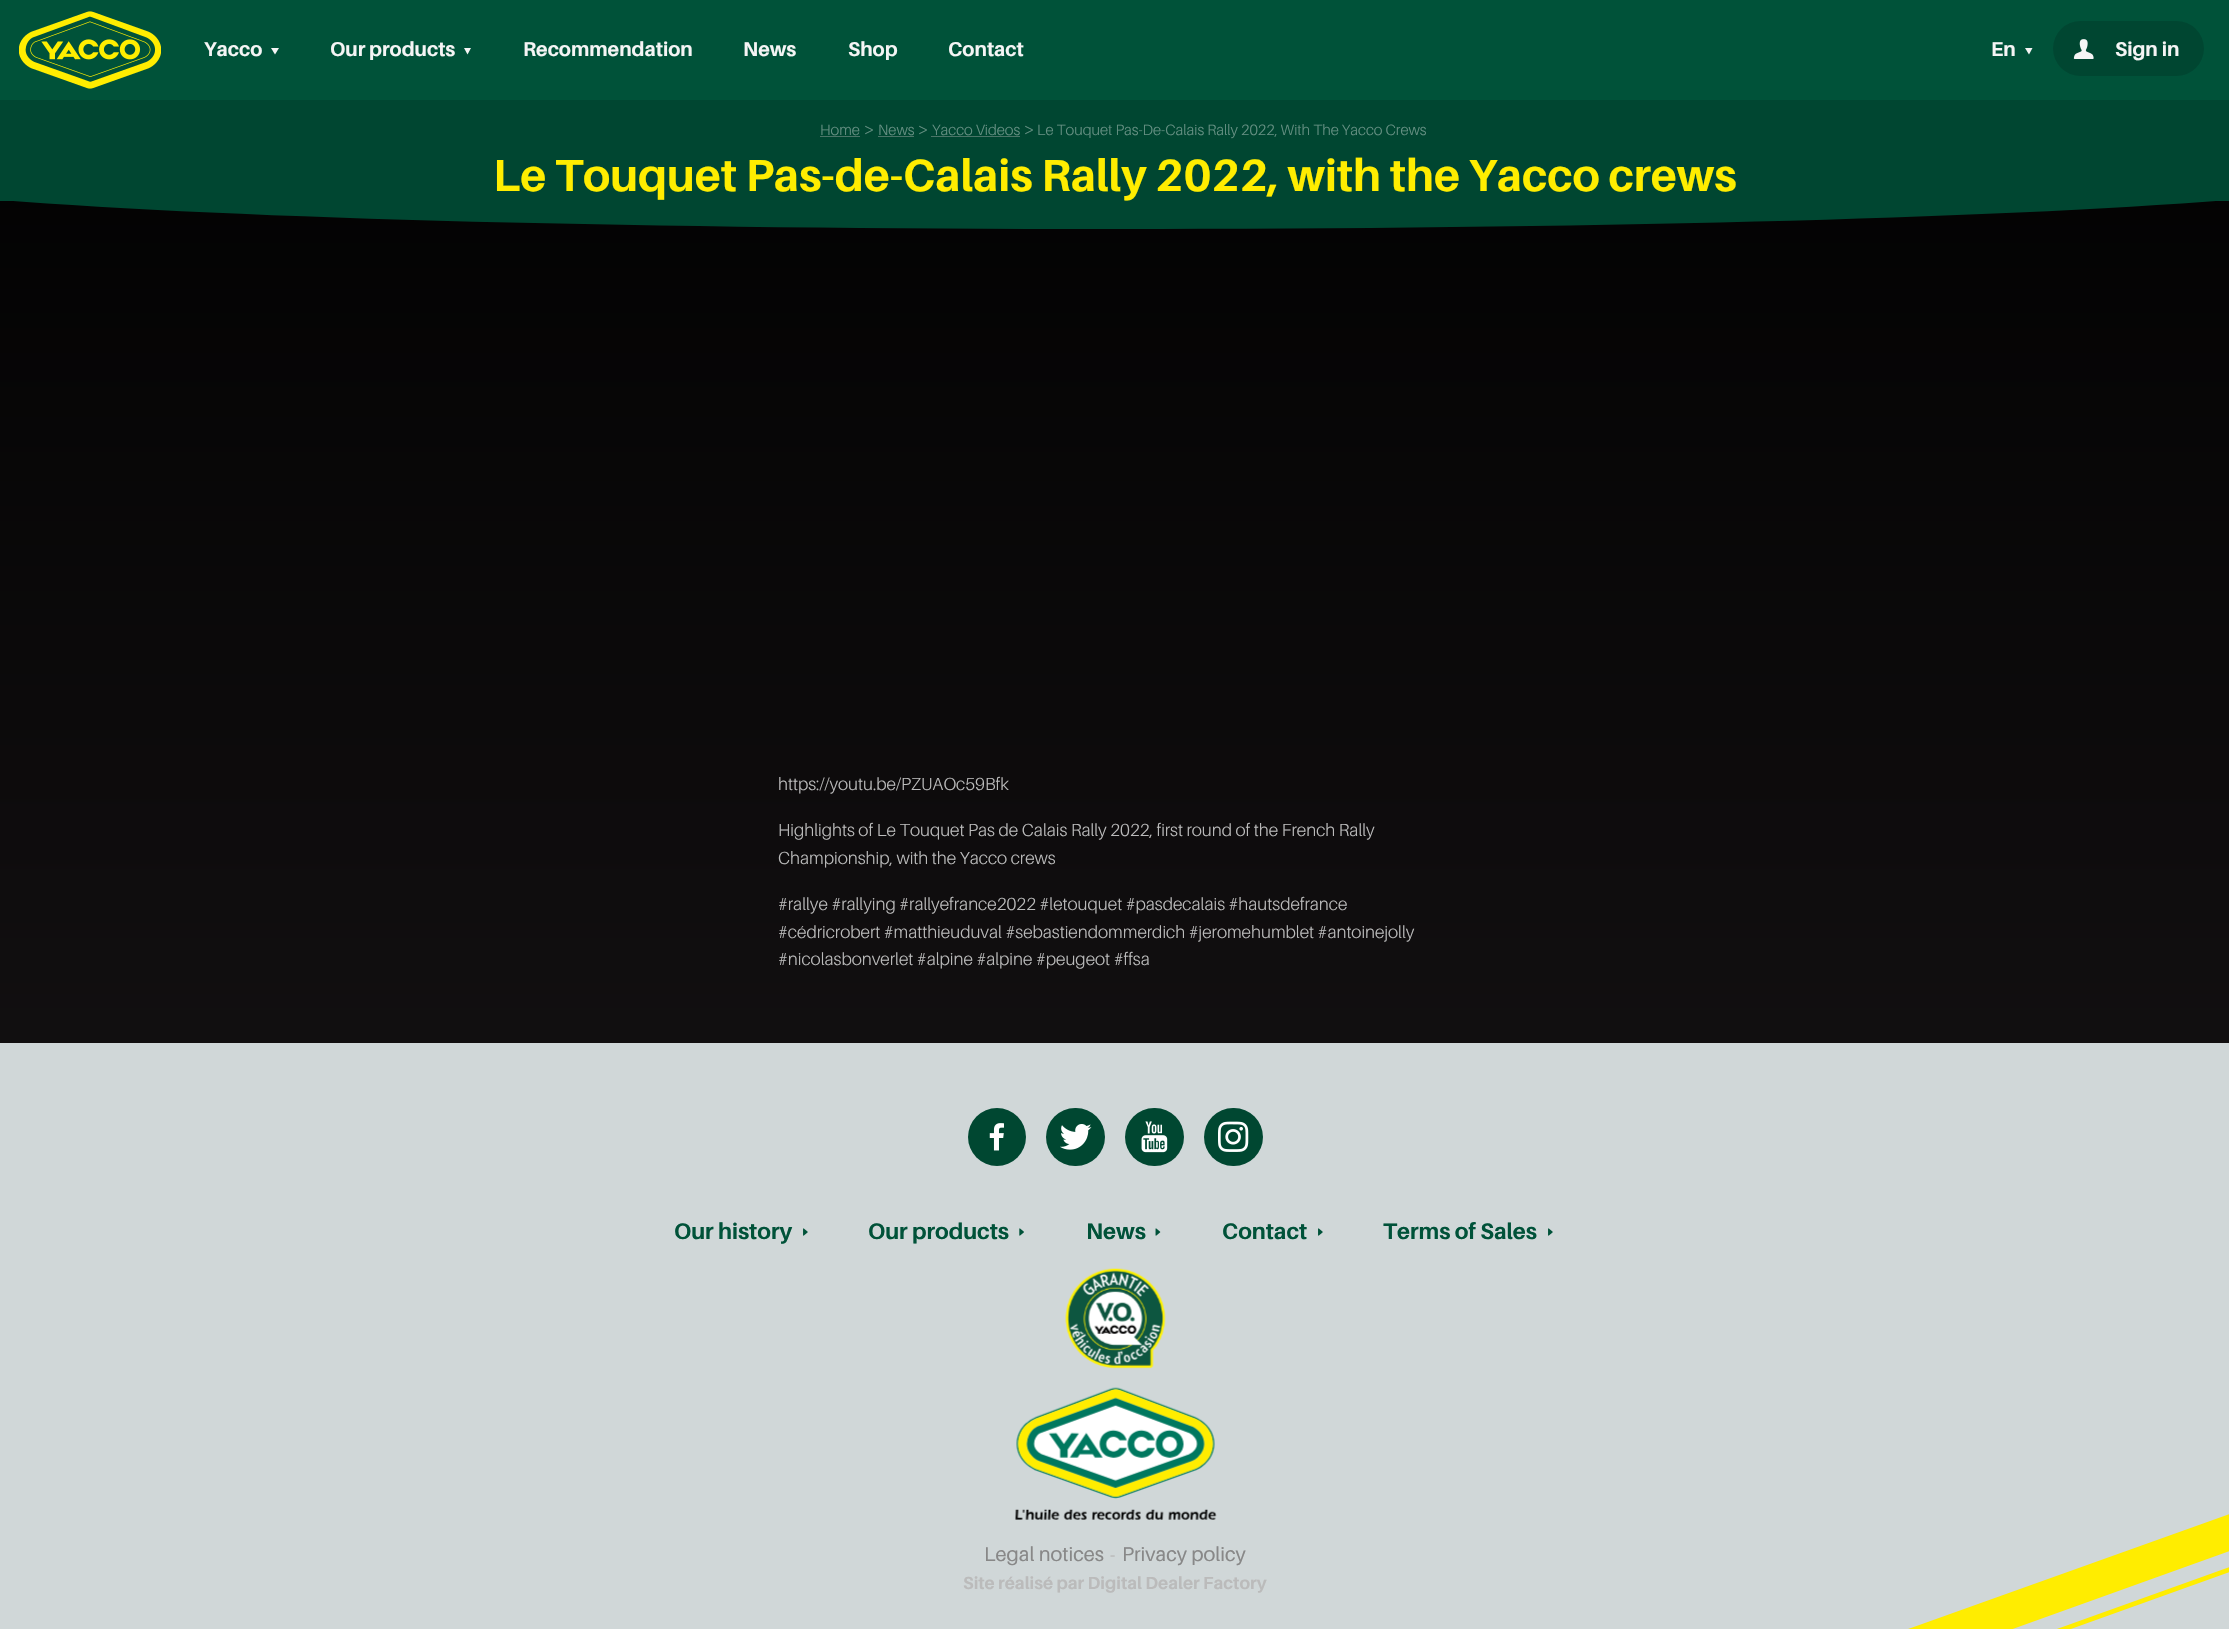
void draw(SkCanvas* canvas) {
    SkPaint paint;
    paint.setAntiAlias(true);
    auto face = [&](const char* family, int weight, float size, bool italic = false) {
        SkFontStyle style(weight, SkFontStyle::kNormal_Width,
            italic ? SkFontStyle::kItalic_Slant : SkFontStyle::kUpright_Slant);
        SkFont result(fontMgr->matchFamilyStyle(family, style), size);
        result.setSubpixel(true);
        return result;
    };
    auto write = [&](const char* s, float x, float y, const SkFont& font, SkColor color) {
        SkPaint ink(SkColor4f::FromColor(color));
        ink.setAntiAlias(true);
        canvas->drawString(s, x, y, font, ink);
    };
    auto block = [&](float x, float y, float w, float h, SkColor color) {
        SkPaint ink(SkColor4f::FromColor(color));
        ink.setAntiAlias(true);
        canvas->drawRect(SkRect::MakeXYWH(x, y, w, h), ink);
    };
    auto card = [&](float x, float y, float w, float h, float radius, SkColor color) {
        SkPaint ink(SkColor4f::FromColor(color));
        ink.setAntiAlias(true);
        canvas->drawRoundRect(SkRect::MakeXYWH(x, y, w, h), radius, radius, ink);
    };
    auto paste = [&](const char* path, float x, float y, float w, float h) {
        auto image = SkImages::DeferredFromEncodedData(SkData::MakeFromFileName(path));
        canvas->drawImageRect(image, SkRect::MakeXYWH(x, y, w, h), SkSamplingOptions());
    };
    canvas->clear(SK_ColorWHITE);
    {
        const SkColor colors[] = {SK_ColorBLACK, SkColorSetRGB(28, 24, 26)};
        const float stops[] = {0, 1};
        const SkPoint ends[] = {{1115, 0}, {1115, 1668}};
        paint.setShader(SkGradientShader::MakeLinear(ends, colors, stops, 2, SkTileMode::kClamp));
        paint.setAlpha(255);
    }
    canvas->drawRect(SkRect::MakeXYWH(0, 201, 2229, 842), paint);
    block(0, 0, 2229, 100, SkColorSetRGB(0, 82, 57));
    paste("pic1.png", 19, 11, 142, 78);
    auto kFont1 = face("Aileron", 700, 20);
    write("Yacco", 204, 56, kFont1, SkColorSetRGB(245, 245, 245));
    paint.setShader(nullptr);
    paint.setColor(SkColorSetRGB(245, 245, 245));
    canvas->drawPath(SkPathBuilder().moveTo(271, 48).lineTo(279, 48).lineTo(275, 54.5f).close().detach(), paint);
    write("Our products", 330, 56, kFont1, SkColorSetRGB(245, 245, 245));
    canvas->drawPath(SkPathBuilder().moveTo(464, 48).lineTo(471, 48).lineTo(467.5f, 54.5f).close().detach(), paint);
    write("Recommendation", 523, 56, kFont1, SkColorSetRGB(245, 245, 245));
    write("News", 743, 56, kFont1, SkColorSetRGB(245, 245, 245));
    write("Shop", 848, 56, kFont1, SkColorSetRGB(245, 245, 245));
    write("Contact", 948, 56, kFont1, SkColorSetRGB(245, 245, 245));
    write("En", 1991, 56, kFont1, SkColorSetRGB(245, 245, 245));
    canvas->drawPath(SkPathBuilder().moveTo(2025, 48).lineTo(2032.5f, 48).lineTo(2029, 54.5f).close().detach(), paint);
    card(2053, 21, 151, 55, 27.5f, SkColorSetRGB(0, 70, 49));
    paste("pic2.png", 2073, 39, 21, 20);
    write("Sign in", 2115, 56, kFont1, SkColorSetRGB(245, 245, 245));
    block(0, 100, 2229, 101, SkColorSetRGB(0, 70, 49));
    auto kFont2 = face("Aileron", 300, 15);
    write("Home", 820, 135, kFont2, SkColorSetRGB(102, 144, 131));
    block(820, 136, 40, 1, SkColorSetRGB(75, 117, 104));
    auto kFont3 = face("Aileron", 300, 19);
    write(">", 864, 135, kFont3, SkColorSetRGB(102, 144, 131));
    write("News", 878, 135, kFont2, SkColorSetRGB(102, 144, 131));
    block(878, 136, 36, 1, SkColorSetRGB(75, 117, 104));
    write(">", 918, 135, kFont3, SkColorSetRGB(102, 144, 131));
    write("Yacco Videos", 932, 135, kFont2, SkColorSetRGB(102, 144, 131));
    block(931, 136, 89, 1, SkColorSetRGB(75, 117, 104));
    write(">", 1024, 135, kFont3, SkColorSetRGB(102, 144, 131));
    write("Le Touquet Pas-De-Calais Rally 2022, With The Yacco Crews", 1037, 135, kFont2, SkColorSetRGB(102, 144, 131));
    paint.setColor(SkColorSetRGB(0, 70, 49));
    canvas->drawPath(SkPathBuilder().moveTo(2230, 200).lineTo(0, 200).cubicTo(242, 219, 651, 229, 1115, 229).cubicTo(1579, 229, 1988, 219, 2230, 200).close().detach(), paint);
    auto kFont4 = face("Aileron", 700, 45);
    write("Le Touquet Pas-de-Calais Rally 2022, with the Yacco crews", 493, 191, kFont4, SkColorSetRGB(255, 237, 0));
    auto kFont5 = face("Aileron", 300, 17.5f);
    write("https://youtu.be/PZUAOc59Bfk", 778, 790, kFont5, SkColorSetRGB(187, 187, 187));
    write("Highlights of Le Touquet Pas de Calais Rally 2022, first round of the French Rally", 778, 836, kFont5, SkColorSetRGB(187, 187, 187));
    write("Championship, with the Yacco crews", 778, 864, kFont5, SkColorSetRGB(187, 187, 187));
    write("#rallye #rallying #rallyefrance2022 #letouquet #pasdecalais #hautsdefrance", 778, 910, kFont5, SkColorSetRGB(187, 187, 187));
    write("#cédricrobert #matthieuduval #sebastiendommerdich #jeromehumblet #antoinejolly", 778, 938, kFont5, SkColorSetRGB(187, 187, 187));
    write("#nicolasbonverlet #alpine #alpine #peugeot #ffsa", 778, 965, kFont5, SkColorSetRGB(187, 187, 187));
    block(0, 1043, 2229, 586, SkColorSetRGB(208, 215, 216));
    paint.setColor(SkColorSetRGB(0, 71, 49));
    canvas->drawCircle(997, 1137, 29, paint);
    paste("pic3.png", 989, 1123, 15, 28);
    card(1046, 1108, 59, 58, 29, SkColorSetRGB(0, 71, 49));
    paste("pic4.png", 1060, 1124, 32, 26);
    card(1125, 1108, 59, 58, 29, SkColorSetRGB(0, 71, 49));
    paste("pic5.png", 1141, 1121, 27, 32);
    card(1204, 1108, 59, 58, 29, SkColorSetRGB(0, 71, 49));
    paste("pic6.png", 1218, 1121, 31, 31);
    auto kFont6 = face("Aileron", 700, 22.5f);
    write("Our history", 674, 1239, kFont6, SkColorSetRGB(0, 82, 57));
    paste("pic7.png", 803, 1228, 5, 8);
    write("Our products", 868, 1239, kFont6, SkColorSetRGB(0, 82, 57));
    paste("pic8.png", 1019, 1228, 5, 8);
    write("News", 1086, 1239, kFont6, SkColorSetRGB(0, 82, 57));
    paste("pic9.png", 1155, 1228, 6, 8);
    write("Contact", 1222, 1239, kFont6, SkColorSetRGB(0, 82, 57));
    paste("pic7.png", 1318, 1228, 5, 8);
    write("Terms of Sales", 1383, 1239, kFont6, SkColorSetRGB(0, 82, 57));
    paste("pic7.png", 1548, 1228, 5, 8);
    paste("pic10.png", 1065, 1268, 101, 101);
    paste("pic11.png", 1015, 1387, 202, 133);
    auto kFont7 = face("Aileron", 400, 20);
    write("Legal notices", 984, 1561, kFont7, SkColorSetRGB(136, 136, 136));
    auto kFont8 = face("Aileron", 700, 17.5f);
    write("-", 1110, 1561, kFont8, SkColorSetRGB(187, 187, 187));
    write("Privacy policy", 1122, 1561, kFont7, SkColorSetRGB(136, 136, 136));
    paint.setColor(SkColorSetRGB(255, 237, 0));
    canvas->drawPath(SkPathBuilder().moveTo(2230, 1514).lineTo(1799, 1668).lineTo(1904, 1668).lineTo(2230, 1551).close().detach(), paint);
    canvas->drawPath(SkPathBuilder().moveTo(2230, 1567).lineTo(1948, 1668).lineTo(1962, 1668).lineTo(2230, 1572).close().detach(), paint);
    write("Site réalisé par Digital Dealer Factory", 963, 1589, kFont8, SkColorSetRGB(187, 187, 187));
}
